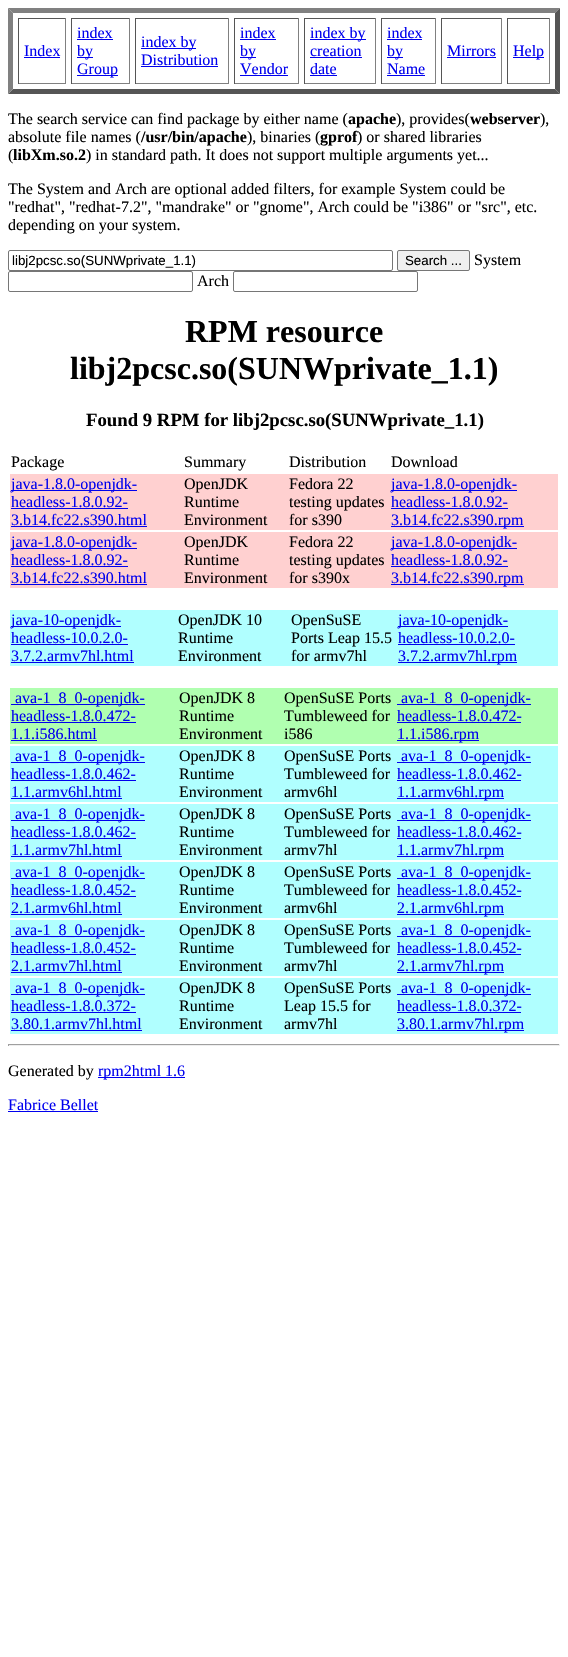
void draw(SkCanvas* canvas) {
    SkPaint paint;
    paint.setAntiAlias(true);
    auto face = [&](const char* family, int weight, float size, bool italic = false) {
        SkFontStyle style(weight, SkFontStyle::kNormal_Width,
            italic ? SkFontStyle::kItalic_Slant : SkFontStyle::kUpright_Slant);
        SkFont result(fontMgr->matchFamilyStyle(family, style), size);
        result.setSubpixel(true);
        return result;
    };
    auto write = [&](const char* s, float x, float y, const SkFont& font, SkColor color) {
        SkPaint ink(SkColor4f::FromColor(color));
        ink.setAntiAlias(true);
        canvas->drawString(s, x, y, font, ink);
    };
    auto block = [&](float x, float y, float w, float h, SkColor color) {
        SkPaint ink(SkColor4f::FromColor(color));
        ink.setAntiAlias(true);
        canvas->drawRect(SkRect::MakeXYWH(x, y, w, h), ink);
    };
    canvas->clear(SK_ColorWHITE);
    paint.setColor(SkColorSetRGB(128, 128, 128));
    canvas->drawPath(SkPathBuilder().moveTo(8, 8).lineTo(560, 8).lineTo(555, 13).lineTo(13, 13).close().detach(), paint);
    paint.setColor(SkColorSetRGB(85, 85, 85));
    canvas->drawPath(SkPathBuilder().moveTo(560, 8).lineTo(560, 94).lineTo(555, 89).lineTo(555, 13).close().detach(), paint);
    canvas->drawPath(SkPathBuilder().moveTo(560, 94).lineTo(8, 94).lineTo(13, 89).lineTo(555, 89).close().detach(), paint);
    paint.setColor(SkColorSetRGB(128, 128, 128));
    canvas->drawPath(SkPathBuilder().moveTo(8, 94).lineTo(8, 8).lineTo(13, 13).lineTo(13, 89).close().detach(), paint);
    block(18, 18, 48, 1, SkColorSetRGB(85, 85, 85));
    block(65, 18, 1, 66, SkColorSetRGB(128, 128, 128));
    block(18, 83, 48, 1, SkColorSetRGB(128, 128, 128));
    block(18, 18, 1, 66, SkColorSetRGB(85, 85, 85));
    auto kFont1 = face("Liberation Serif", 400, 16);
    write("Index", 24, 56, kFont1, SkColorSetRGB(0, 0, 238));
    block(24, 57, 36, 1, SkColorSetRGB(0, 0, 238));
    block(71, 18, 59, 1, SkColorSetRGB(85, 85, 85));
    block(129, 18, 1, 66, SkColorSetRGB(128, 128, 128));
    block(71, 83, 59, 1, SkColorSetRGB(128, 128, 128));
    block(71, 18, 1, 66, SkColorSetRGB(85, 85, 85));
    write("index", 77, 38, kFont1, SkColorSetRGB(0, 0, 238));
    block(77, 39, 36, 1, SkColorSetRGB(0, 0, 238));
    block(77, 57, 16, 1, SkColorSetRGB(0, 0, 238));
    write("by", 77, 56, kFont1, SkColorSetRGB(0, 0, 238));
    block(77, 75, 41, 1, SkColorSetRGB(0, 0, 238));
    write("Group", 77, 74, kFont1, SkColorSetRGB(0, 0, 238));
    block(135, 18, 94, 1, SkColorSetRGB(85, 85, 85));
    block(228, 18, 1, 66, SkColorSetRGB(128, 128, 128));
    block(135, 83, 94, 1, SkColorSetRGB(128, 128, 128));
    block(135, 18, 1, 66, SkColorSetRGB(85, 85, 85));
    block(141, 48, 55, 1, SkColorSetRGB(0, 0, 238));
    write("index by", 141, 47, kFont1, SkColorSetRGB(0, 0, 238));
    write("Distribution", 141, 65, kFont1, SkColorSetRGB(0, 0, 238));
    block(141, 66, 77, 1, SkColorSetRGB(0, 0, 238));
    block(234, 18, 65, 1, SkColorSetRGB(85, 85, 85));
    block(298, 18, 1, 66, SkColorSetRGB(128, 128, 128));
    block(234, 83, 65, 1, SkColorSetRGB(128, 128, 128));
    block(234, 18, 1, 66, SkColorSetRGB(85, 85, 85));
    write("index", 240, 38, kFont1, SkColorSetRGB(0, 0, 238));
    block(240, 39, 36, 1, SkColorSetRGB(0, 0, 238));
    block(240, 57, 16, 1, SkColorSetRGB(0, 0, 238));
    write("by", 240, 56, kFont1, SkColorSetRGB(0, 0, 238));
    write("Vendor", 240, 74, kFont1, SkColorSetRGB(0, 0, 238));
    block(240, 75, 48, 1, SkColorSetRGB(0, 0, 238));
    block(304, 18, 72, 1, SkColorSetRGB(85, 85, 85));
    block(375, 18, 1, 66, SkColorSetRGB(128, 128, 128));
    block(304, 83, 72, 1, SkColorSetRGB(128, 128, 128));
    block(304, 18, 1, 66, SkColorSetRGB(85, 85, 85));
    block(310, 39, 56, 1, SkColorSetRGB(0, 0, 238));
    write("index by", 310, 38, kFont1, SkColorSetRGB(0, 0, 238));
    write("creation", 310, 56, kFont1, SkColorSetRGB(0, 0, 238));
    block(310, 57, 52, 1, SkColorSetRGB(0, 0, 238));
    write("date", 310, 74, kFont1, SkColorSetRGB(0, 0, 238));
    block(310, 75, 27, 1, SkColorSetRGB(0, 0, 238));
    block(381, 18, 55, 1, SkColorSetRGB(85, 85, 85));
    block(435, 18, 1, 66, SkColorSetRGB(128, 128, 128));
    block(381, 83, 55, 1, SkColorSetRGB(128, 128, 128));
    block(381, 18, 1, 66, SkColorSetRGB(85, 85, 85));
    write("index", 387, 38, kFont1, SkColorSetRGB(0, 0, 238));
    block(387, 39, 35, 1, SkColorSetRGB(0, 0, 238));
    block(387, 57, 16, 1, SkColorSetRGB(0, 0, 238));
    write("by", 387, 56, kFont1, SkColorSetRGB(0, 0, 238));
    write("Name", 387, 74, kFont1, SkColorSetRGB(0, 0, 238));
    block(387, 75, 38, 1, SkColorSetRGB(0, 0, 238));
    block(441, 18, 61, 1, SkColorSetRGB(85, 85, 85));
    block(501, 18, 1, 66, SkColorSetRGB(128, 128, 128));
    block(441, 83, 61, 1, SkColorSetRGB(128, 128, 128));
    block(441, 18, 1, 66, SkColorSetRGB(85, 85, 85));
    write("Mirrors", 447, 56, kFont1, SkColorSetRGB(0, 0, 238));
    block(447, 57, 49, 1, SkColorSetRGB(0, 0, 238));
    block(507, 18, 43, 1, SkColorSetRGB(85, 85, 85));
    block(549, 18, 1, 66, SkColorSetRGB(128, 128, 128));
    block(507, 83, 43, 1, SkColorSetRGB(128, 128, 128));
    block(507, 18, 1, 66, SkColorSetRGB(85, 85, 85));
    block(513, 57, 31, 1, SkColorSetRGB(0, 0, 238));
    write("Help", 513, 56, kFont1, SkColorSetRGB(0, 0, 238));
    write("The search service can find package by either name (", 8, 124, kFont1, SK_ColorBLACK);
    auto kFont2 = face("Liberation Serif", 700, 16);
    write("apache", 348, 124, kFont2, SK_ColorBLACK);
    write("), provides(", 396, 124, kFont1, SK_ColorBLACK);
    write("webserver", 470, 124, kFont2, SK_ColorBLACK);
    write("),", 540, 124, kFont1, SK_ColorBLACK);
    write("absolute file names (", 8, 142, kFont1, SK_ColorBLACK);
    write("/usr/bin/apache", 141, 142, kFont2, SK_ColorBLACK);
    write("), binaries (", 247, 142, kFont1, SK_ColorBLACK);
    write("gprof", 320, 142, kFont2, SK_ColorBLACK);
    write(") or shared libraries", 357, 142, kFont1, SK_ColorBLACK);
    write("(", 8, 160, kFont1, SK_ColorBLACK);
    write("libXm.so.2", 13, 160, kFont2, SK_ColorBLACK);
    write(") in standard path. It does not support multiple arguments yet...", 86, 160, kFont1, SK_ColorBLACK);
    write("The System and Arch are optional added filters, for example System could be", 8, 194, kFont1, SK_ColorBLACK);
    write("\"redhat\", \"redhat-7.2\", \"mandrake\" or \"gnome\", Arch could be \"i386\" or \"src\", etc.", 8, 212, kFont1, SK_ColorBLACK);
    write("depending on your system.", 8, 230, kFont1, SK_ColorBLACK);
    paint.setStyle(SkPaint::kStroke_Style);
    paint.setStrokeWidth(1);
    paint.setColor(SkColorSetRGB(118, 118, 118));
    canvas->drawRoundRect(SkRect::MakeXYWH(8.5f, 250.5f, 384, 20), 1.5f, 1.5f, paint);
    auto kFont3 = face("Liberation Sans", 400, 13.3f);
    write("libj2pcsc.so(SUNWprivate_1.1)", 12, 265, kFont3, SK_ColorBLACK);
    paint.setStyle(SkPaint::kFill_Style);
    paint.setColor(SkColorSetRGB(239, 239, 239));
    canvas->drawRoundRect(SkRect::MakeXYWH(397.5f, 250.5f, 72, 20), 1.5f, 1.5f, paint);
    paint.setStyle(SkPaint::kStroke_Style);
    paint.setColor(SkColorSetRGB(118, 118, 118));
    canvas->drawRoundRect(SkRect::MakeXYWH(397.5f, 250.5f, 72, 20), 1.5f, 1.5f, paint);
    write("Search ...", 405, 265, kFont3, SK_ColorBLACK);
    write("System", 474, 265, kFont1, SK_ColorBLACK);
    canvas->drawRoundRect(SkRect::MakeXYWH(8.5f, 271.5f, 184, 20), 1.5f, 1.5f, paint);
    write("Arch", 197, 286, kFont1, SK_ColorBLACK);
    canvas->drawRoundRect(SkRect::MakeXYWH(233.5f, 271.5f, 184, 20), 1.5f, 1.5f, paint);
    auto kFont4 = face("Liberation Serif", 700, 32);
    write("RPM resource", 185, 342, kFont4, SK_ColorBLACK);
    write("libj2pcsc.so(SUNWprivate_1.1)", 70, 379, kFont4, SK_ColorBLACK);
    auto kFont5 = face("Liberation Serif", 700, 18.75f);
    write("Found 9 RPM for libj2pcsc.so(SUNWprivate_1.1)", 86, 426, kFont5, SK_ColorBLACK);
    write("Package", 11, 467, kFont1, SK_ColorBLACK);
    write("Summary", 184, 467, kFont1, SK_ColorBLACK);
    write("Distribution", 289, 467, kFont1, SK_ColorBLACK);
    write("Download", 391, 467, kFont1, SK_ColorBLACK);
    block(10, 474, 548, 56, SkColorSetRGB(255, 208, 208));
    block(11, 490, 126, 1, SkColorSetRGB(0, 0, 238));
    write("java-1.8.0-openjdk-", 11, 489, kFont1, SkColorSetRGB(0, 0, 238));
    write("headless-1.8.0.92-", 11, 507, kFont1, SkColorSetRGB(0, 0, 238));
    block(11, 508, 117, 1, SkColorSetRGB(0, 0, 238));
    write("3.b14.fc22.s390.html", 11, 525, kFont1, SkColorSetRGB(0, 0, 238));
    block(11, 526, 136, 1, SkColorSetRGB(0, 0, 238));
    write("OpenJDK", 184, 489, kFont1, SK_ColorBLACK);
    write("Runtime", 184, 507, kFont1, SK_ColorBLACK);
    write("Environment", 184, 525, kFont1, SK_ColorBLACK);
    write("Fedora 22", 289, 489, kFont1, SK_ColorBLACK);
    write("testing updates", 289, 507, kFont1, SK_ColorBLACK);
    write("for s390", 289, 525, kFont1, SK_ColorBLACK);
    block(391, 490, 126, 1, SkColorSetRGB(0, 0, 238));
    write("java-1.8.0-openjdk-", 391, 489, kFont1, SkColorSetRGB(0, 0, 238));
    write("headless-1.8.0.92-", 391, 507, kFont1, SkColorSetRGB(0, 0, 238));
    block(391, 508, 117, 1, SkColorSetRGB(0, 0, 238));
    block(391, 526, 133, 1, SkColorSetRGB(0, 0, 238));
    write("3.b14.fc22.s390.rpm", 391, 525, kFont1, SkColorSetRGB(0, 0, 238));
    block(10, 532, 548, 56, SkColorSetRGB(255, 208, 208));
    block(11, 548, 126, 1, SkColorSetRGB(0, 0, 238));
    write("java-1.8.0-openjdk-", 11, 547, kFont1, SkColorSetRGB(0, 0, 238));
    write("headless-1.8.0.92-", 11, 565, kFont1, SkColorSetRGB(0, 0, 238));
    block(11, 566, 117, 1, SkColorSetRGB(0, 0, 238));
    write("3.b14.fc22.s390.html", 11, 583, kFont1, SkColorSetRGB(0, 0, 238));
    block(11, 584, 136, 1, SkColorSetRGB(0, 0, 238));
    write("OpenJDK", 184, 547, kFont1, SK_ColorBLACK);
    write("Runtime", 184, 565, kFont1, SK_ColorBLACK);
    write("Environment", 184, 583, kFont1, SK_ColorBLACK);
    write("Fedora 22", 289, 547, kFont1, SK_ColorBLACK);
    write("testing updates", 289, 565, kFont1, SK_ColorBLACK);
    write("for s390x", 289, 583, kFont1, SK_ColorBLACK);
    block(391, 548, 126, 1, SkColorSetRGB(0, 0, 238));
    write("java-1.8.0-openjdk-", 391, 547, kFont1, SkColorSetRGB(0, 0, 238));
    write("headless-1.8.0.92-", 391, 565, kFont1, SkColorSetRGB(0, 0, 238));
    block(391, 566, 117, 1, SkColorSetRGB(0, 0, 238));
    block(391, 584, 133, 1, SkColorSetRGB(0, 0, 238));
    write("3.b14.fc22.s390.rpm", 391, 583, kFont1, SkColorSetRGB(0, 0, 238));
    block(10, 610, 548, 56, SkColorSetRGB(176, 255, 255));
    block(11, 626, 110, 1, SkColorSetRGB(0, 0, 238));
    write("java-10-openjdk-", 11, 625, kFont1, SkColorSetRGB(0, 0, 238));
    write("headless-10.0.2.0-", 11, 643, kFont1, SkColorSetRGB(0, 0, 238));
    block(11, 644, 117, 1, SkColorSetRGB(0, 0, 238));
    write("3.7.2.armv7hl.html", 11, 661, kFont1, SkColorSetRGB(0, 0, 238));
    block(11, 662, 123, 1, SkColorSetRGB(0, 0, 238));
    write("OpenJDK 10", 178, 625, kFont1, SK_ColorBLACK);
    write("Runtime", 178, 643, kFont1, SK_ColorBLACK);
    write("Environment", 178, 661, kFont1, SK_ColorBLACK);
    write("OpenSuSE", 291, 625, kFont1, SK_ColorBLACK);
    write("Ports Leap 15.5", 291, 643, kFont1, SK_ColorBLACK);
    write("for armv7hl", 291, 661, kFont1, SK_ColorBLACK);
    block(398, 626, 110, 1, SkColorSetRGB(0, 0, 238));
    write("java-10-openjdk-", 398, 625, kFont1, SkColorSetRGB(0, 0, 238));
    write("headless-10.0.2.0-", 398, 643, kFont1, SkColorSetRGB(0, 0, 238));
    block(398, 644, 117, 1, SkColorSetRGB(0, 0, 238));
    block(398, 662, 119, 1, SkColorSetRGB(0, 0, 238));
    write("3.7.2.armv7hl.rpm", 398, 661, kFont1, SkColorSetRGB(0, 0, 238));
    block(10, 688, 548, 56, SkColorSetRGB(176, 255, 176));
    block(11, 704, 134, 1, SkColorSetRGB(0, 0, 238));
    write("ava-1_8_0-openjdk-", 15, 703, kFont1, SkColorSetRGB(0, 0, 238));
    write("headless-1.8.0.472-", 11, 721, kFont1, SkColorSetRGB(0, 0, 238));
    block(11, 722, 125, 1, SkColorSetRGB(0, 0, 238));
    write("1.1.i586.html", 11, 739, kFont1, SkColorSetRGB(0, 0, 238));
    block(11, 740, 86, 1, SkColorSetRGB(0, 0, 238));
    write("OpenJDK 8", 179, 703, kFont1, SK_ColorBLACK);
    write("Runtime", 179, 721, kFont1, SK_ColorBLACK);
    write("Environment", 179, 739, kFont1, SK_ColorBLACK);
    write("OpenSuSE Ports", 284, 703, kFont1, SK_ColorBLACK);
    write("Tumbleweed for", 284, 721, kFont1, SK_ColorBLACK);
    write("i586", 284, 739, kFont1, SK_ColorBLACK);
    block(397, 704, 134, 1, SkColorSetRGB(0, 0, 238));
    write("ava-1_8_0-openjdk-", 401, 703, kFont1, SkColorSetRGB(0, 0, 238));
    write("headless-1.8.0.472-", 397, 721, kFont1, SkColorSetRGB(0, 0, 238));
    block(397, 722, 124, 1, SkColorSetRGB(0, 0, 238));
    block(397, 740, 82, 1, SkColorSetRGB(0, 0, 238));
    write("1.1.i586.rpm", 397, 739, kFont1, SkColorSetRGB(0, 0, 238));
    block(10, 746, 548, 56, SkColorSetRGB(176, 255, 255));
    block(11, 762, 134, 1, SkColorSetRGB(0, 0, 238));
    write("ava-1_8_0-openjdk-", 15, 761, kFont1, SkColorSetRGB(0, 0, 238));
    write("headless-1.8.0.462-", 11, 779, kFont1, SkColorSetRGB(0, 0, 238));
    block(11, 780, 125, 1, SkColorSetRGB(0, 0, 238));
    write("1.1.armv6hl.html", 11, 797, kFont1, SkColorSetRGB(0, 0, 238));
    block(11, 798, 111, 1, SkColorSetRGB(0, 0, 238));
    write("OpenJDK 8", 179, 761, kFont1, SK_ColorBLACK);
    write("Runtime", 179, 779, kFont1, SK_ColorBLACK);
    write("Environment", 179, 797, kFont1, SK_ColorBLACK);
    write("OpenSuSE Ports", 284, 761, kFont1, SK_ColorBLACK);
    write("Tumbleweed for", 284, 779, kFont1, SK_ColorBLACK);
    write("armv6hl", 284, 797, kFont1, SK_ColorBLACK);
    block(397, 762, 134, 1, SkColorSetRGB(0, 0, 238));
    write("ava-1_8_0-openjdk-", 401, 761, kFont1, SkColorSetRGB(0, 0, 238));
    write("headless-1.8.0.462-", 397, 779, kFont1, SkColorSetRGB(0, 0, 238));
    block(397, 780, 124, 1, SkColorSetRGB(0, 0, 238));
    block(397, 798, 107, 1, SkColorSetRGB(0, 0, 238));
    write("1.1.armv6hl.rpm", 397, 797, kFont1, SkColorSetRGB(0, 0, 238));
    block(10, 804, 548, 56, SkColorSetRGB(176, 255, 255));
    block(11, 820, 134, 1, SkColorSetRGB(0, 0, 238));
    write("ava-1_8_0-openjdk-", 15, 819, kFont1, SkColorSetRGB(0, 0, 238));
    write("headless-1.8.0.462-", 11, 837, kFont1, SkColorSetRGB(0, 0, 238));
    block(11, 838, 125, 1, SkColorSetRGB(0, 0, 238));
    write("1.1.armv7hl.html", 11, 855, kFont1, SkColorSetRGB(0, 0, 238));
    block(11, 856, 111, 1, SkColorSetRGB(0, 0, 238));
    write("OpenJDK 8", 179, 819, kFont1, SK_ColorBLACK);
    write("Runtime", 179, 837, kFont1, SK_ColorBLACK);
    write("Environment", 179, 855, kFont1, SK_ColorBLACK);
    write("OpenSuSE Ports", 284, 819, kFont1, SK_ColorBLACK);
    write("Tumbleweed for", 284, 837, kFont1, SK_ColorBLACK);
    write("armv7hl", 284, 855, kFont1, SK_ColorBLACK);
    block(397, 820, 134, 1, SkColorSetRGB(0, 0, 238));
    write("ava-1_8_0-openjdk-", 401, 819, kFont1, SkColorSetRGB(0, 0, 238));
    write("headless-1.8.0.462-", 397, 837, kFont1, SkColorSetRGB(0, 0, 238));
    block(397, 838, 124, 1, SkColorSetRGB(0, 0, 238));
    block(397, 856, 107, 1, SkColorSetRGB(0, 0, 238));
    write("1.1.armv7hl.rpm", 397, 855, kFont1, SkColorSetRGB(0, 0, 238));
    block(10, 862, 548, 56, SkColorSetRGB(176, 255, 255));
    block(11, 878, 134, 1, SkColorSetRGB(0, 0, 238));
    write("ava-1_8_0-openjdk-", 15, 877, kFont1, SkColorSetRGB(0, 0, 238));
    write("headless-1.8.0.452-", 11, 895, kFont1, SkColorSetRGB(0, 0, 238));
    block(11, 896, 125, 1, SkColorSetRGB(0, 0, 238));
    write("2.1.armv6hl.html", 11, 913, kFont1, SkColorSetRGB(0, 0, 238));
    block(11, 914, 111, 1, SkColorSetRGB(0, 0, 238));
    write("OpenJDK 8", 179, 877, kFont1, SK_ColorBLACK);
    write("Runtime", 179, 895, kFont1, SK_ColorBLACK);
    write("Environment", 179, 913, kFont1, SK_ColorBLACK);
    write("OpenSuSE Ports", 284, 877, kFont1, SK_ColorBLACK);
    write("Tumbleweed for", 284, 895, kFont1, SK_ColorBLACK);
    write("armv6hl", 284, 913, kFont1, SK_ColorBLACK);
    block(397, 878, 134, 1, SkColorSetRGB(0, 0, 238));
    write("ava-1_8_0-openjdk-", 401, 877, kFont1, SkColorSetRGB(0, 0, 238));
    write("headless-1.8.0.452-", 397, 895, kFont1, SkColorSetRGB(0, 0, 238));
    block(397, 896, 124, 1, SkColorSetRGB(0, 0, 238));
    block(397, 914, 107, 1, SkColorSetRGB(0, 0, 238));
    write("2.1.armv6hl.rpm", 397, 913, kFont1, SkColorSetRGB(0, 0, 238));
    block(10, 920, 548, 56, SkColorSetRGB(176, 255, 255));
    block(11, 936, 134, 1, SkColorSetRGB(0, 0, 238));
    write("ava-1_8_0-openjdk-", 15, 935, kFont1, SkColorSetRGB(0, 0, 238));
    write("headless-1.8.0.452-", 11, 953, kFont1, SkColorSetRGB(0, 0, 238));
    block(11, 954, 125, 1, SkColorSetRGB(0, 0, 238));
    write("2.1.armv7hl.html", 11, 971, kFont1, SkColorSetRGB(0, 0, 238));
    block(11, 972, 111, 1, SkColorSetRGB(0, 0, 238));
    write("OpenJDK 8", 179, 935, kFont1, SK_ColorBLACK);
    write("Runtime", 179, 953, kFont1, SK_ColorBLACK);
    write("Environment", 179, 971, kFont1, SK_ColorBLACK);
    write("OpenSuSE Ports", 284, 935, kFont1, SK_ColorBLACK);
    write("Tumbleweed for", 284, 953, kFont1, SK_ColorBLACK);
    write("armv7hl", 284, 971, kFont1, SK_ColorBLACK);
    block(397, 936, 134, 1, SkColorSetRGB(0, 0, 238));
    write("ava-1_8_0-openjdk-", 401, 935, kFont1, SkColorSetRGB(0, 0, 238));
    write("headless-1.8.0.452-", 397, 953, kFont1, SkColorSetRGB(0, 0, 238));
    block(397, 954, 124, 1, SkColorSetRGB(0, 0, 238));
    block(397, 972, 107, 1, SkColorSetRGB(0, 0, 238));
    write("2.1.armv7hl.rpm", 397, 971, kFont1, SkColorSetRGB(0, 0, 238));
    block(10, 978, 548, 56, SkColorSetRGB(176, 255, 255));
    block(11, 994, 134, 1, SkColorSetRGB(0, 0, 238));
    write("ava-1_8_0-openjdk-", 15, 993, kFont1, SkColorSetRGB(0, 0, 238));
    write("headless-1.8.0.372-", 11, 1011, kFont1, SkColorSetRGB(0, 0, 238));
    block(11, 1012, 125, 1, SkColorSetRGB(0, 0, 238));
    write("3.80.1.armv7hl.html", 11, 1029, kFont1, SkColorSetRGB(0, 0, 238));
    block(11, 1030, 131, 1, SkColorSetRGB(0, 0, 238));
    write("OpenJDK 8", 179, 993, kFont1, SK_ColorBLACK);
    write("Runtime", 179, 1011, kFont1, SK_ColorBLACK);
    write("Environment", 179, 1029, kFont1, SK_ColorBLACK);
    write("OpenSuSE Ports", 284, 993, kFont1, SK_ColorBLACK);
    write("Leap 15.5 for", 284, 1011, kFont1, SK_ColorBLACK);
    write("armv7hl", 284, 1029, kFont1, SK_ColorBLACK);
    block(397, 994, 134, 1, SkColorSetRGB(0, 0, 238));
    write("ava-1_8_0-openjdk-", 401, 993, kFont1, SkColorSetRGB(0, 0, 238));
    write("headless-1.8.0.372-", 397, 1011, kFont1, SkColorSetRGB(0, 0, 238));
    block(397, 1012, 124, 1, SkColorSetRGB(0, 0, 238));
    block(397, 1030, 127, 1, SkColorSetRGB(0, 0, 238));
    write("3.80.1.armv7hl.rpm", 397, 1029, kFont1, SkColorSetRGB(0, 0, 238));
    block(8, 1044, 552, 1, SkColorSetRGB(159, 159, 159));
    block(559, 1044, 1, 2, SkColorSetRGB(238, 238, 238));
    block(8, 1045, 552, 1, SkColorSetRGB(238, 238, 238));
    block(8, 1044, 1, 2, SkColorSetRGB(159, 159, 159));
    write("Generated by", 8, 1076, kFont1, SK_ColorBLACK);
    block(98, 1077, 87, 1, SkColorSetRGB(0, 0, 238));
    write("rpm2html 1.6", 98, 1076, kFont1, SkColorSetRGB(0, 0, 238));
    write("Fabrice Bellet", 8, 1110, kFont1, SkColorSetRGB(0, 0, 238));
    block(8, 1111, 90, 1, SkColorSetRGB(0, 0, 238));
}
